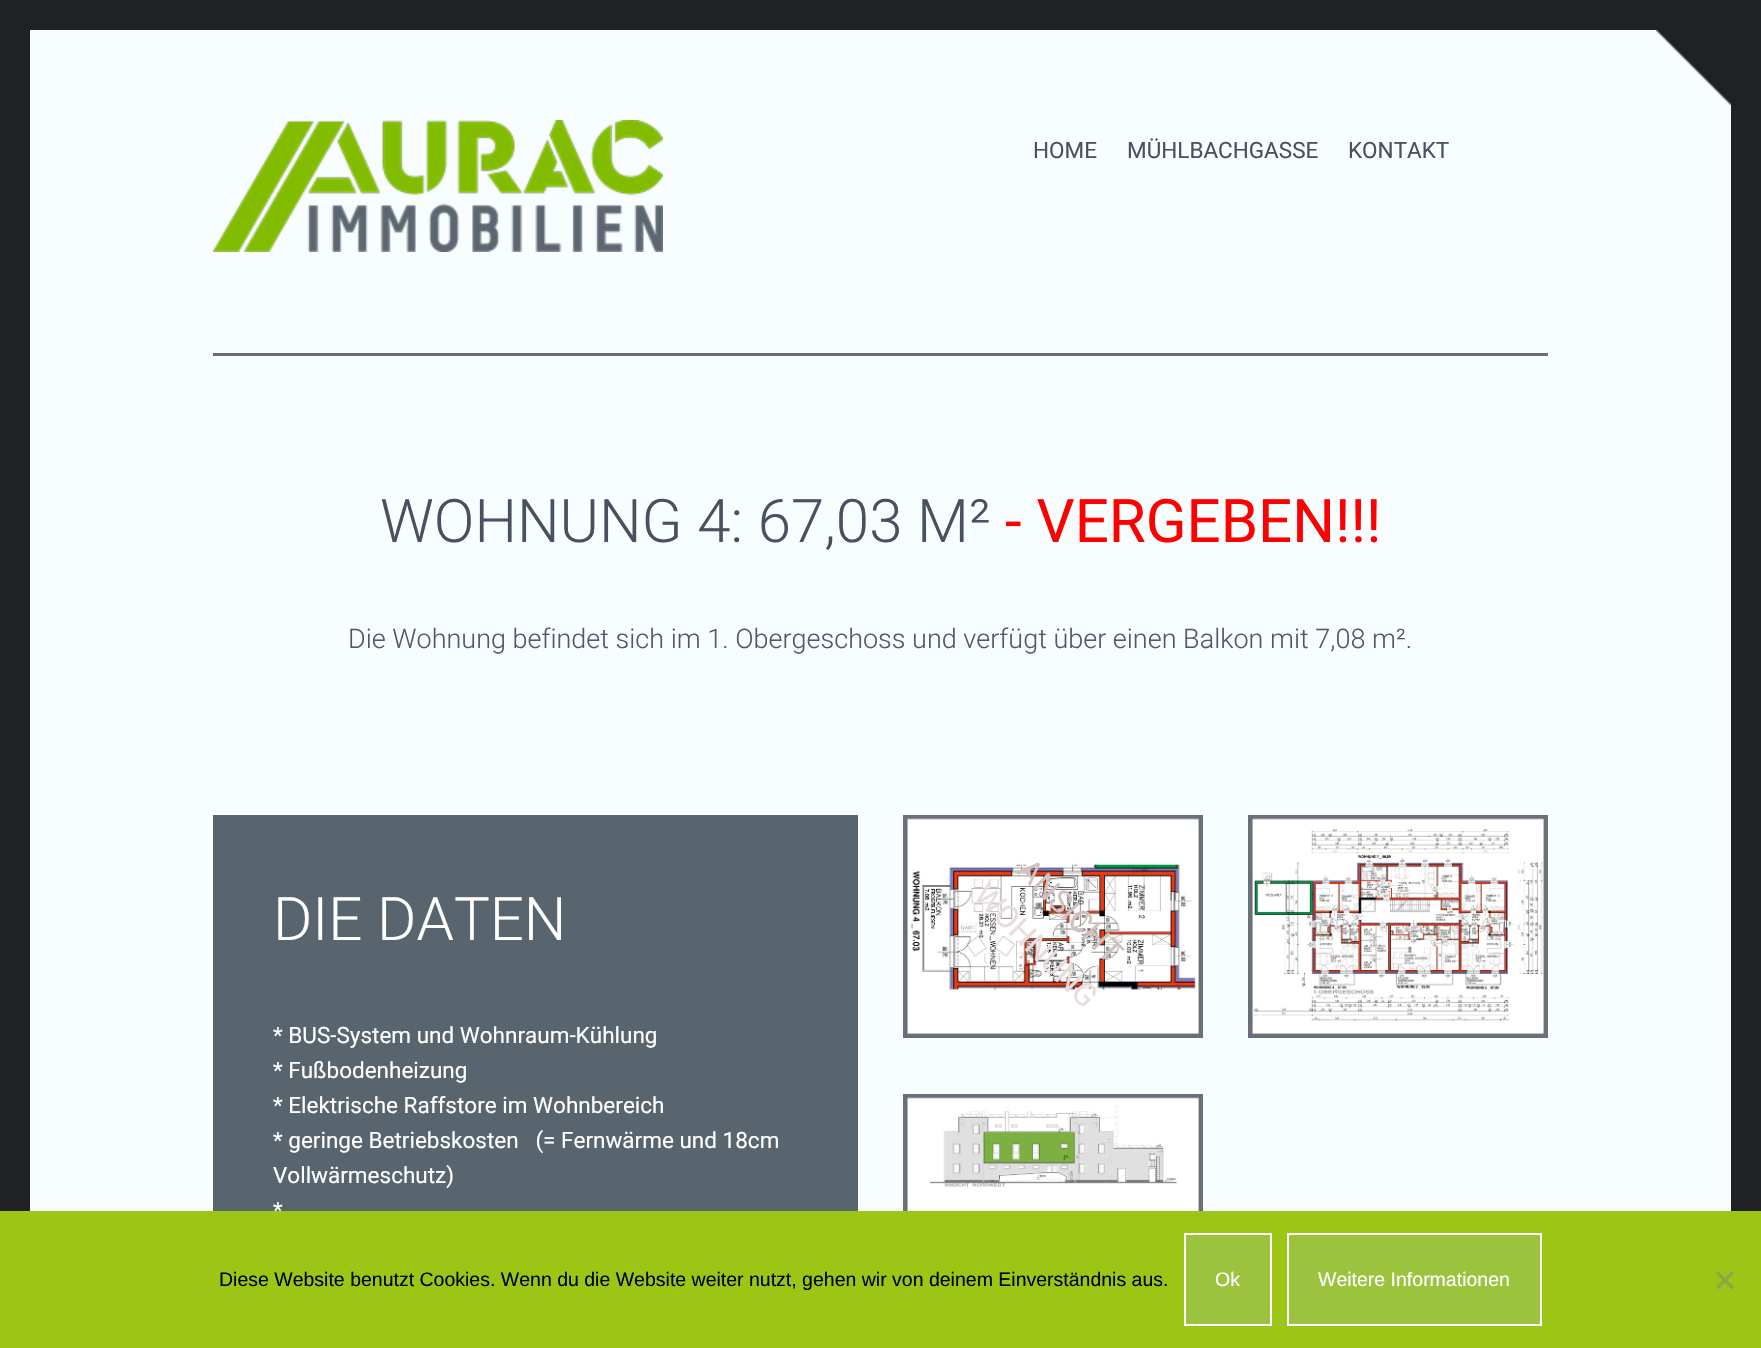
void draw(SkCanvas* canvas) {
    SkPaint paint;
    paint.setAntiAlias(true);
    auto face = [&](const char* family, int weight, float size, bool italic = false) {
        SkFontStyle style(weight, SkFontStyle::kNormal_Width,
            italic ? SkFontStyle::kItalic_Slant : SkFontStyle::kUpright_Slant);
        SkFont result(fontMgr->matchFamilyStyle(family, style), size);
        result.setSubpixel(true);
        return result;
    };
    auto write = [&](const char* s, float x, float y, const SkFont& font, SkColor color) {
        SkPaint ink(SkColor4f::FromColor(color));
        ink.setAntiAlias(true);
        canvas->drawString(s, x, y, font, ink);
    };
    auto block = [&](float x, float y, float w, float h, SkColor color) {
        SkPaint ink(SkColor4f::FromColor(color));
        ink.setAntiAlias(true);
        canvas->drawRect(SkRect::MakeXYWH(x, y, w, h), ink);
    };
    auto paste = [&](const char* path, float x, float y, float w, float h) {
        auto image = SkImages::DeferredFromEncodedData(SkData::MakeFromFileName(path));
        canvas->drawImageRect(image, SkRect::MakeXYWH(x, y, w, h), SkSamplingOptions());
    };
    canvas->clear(SkColorSetRGB(248, 254, 255));
    block(0, 0, 30, 1211, SkColorSetRGB(31, 33, 34));
    block(30, 0, 1701, 30, SkColorSetRGB(31, 33, 34));
    block(1731, 0, 30, 1211, SkColorSetRGB(31, 33, 34));
    paste("pic1.png", 1656, 30, 75, 75);
    block(213, 353, 1335, 3, SkColorSetRGB(103, 110, 120));
    paste("pic2.png", 213, 120, 450, 132);
    auto kFont1 = face("Roboto", 400, 22.5f);
    write("HOME", 1033, 158, kFont1, SkColorSetRGB(73, 81, 96));
    write("MÜHLBACHGASSE", 1127, 158, kFont1, SkColorSetRGB(73, 81, 96));
    write("KONTAKT", 1348, 158, kFont1, SkColorSetRGB(73, 81, 96));
    auto kFont2 = face("Roboto", 300, 60);
    write("WOHNUNG 4: 67,03 M²", 380, 542, kFont2, SkColorSetRGB(73, 81, 96));
    auto kFont3 = face("Roboto", 400, 60);
    write("- VERGEBEN!!!", 1005, 542, kFont3, SkColorSetRGB(255, 0, 0));
    auto kFont4 = face("Roboto", 300, 27);
    write("Die Wohnung befindet sich im 1. Obergeschoss und verfügt über einen Balkon mit 7,08 m².", 348, 648, kFont4, SkColorSetRGB(79, 88, 104));
    block(213, 815, 645, 396, SkColorSetRGB(88, 101, 110));
    write("DIE DATEN", 273, 940, kFont2, SK_ColorWHITE);
    write("* BUS-System und Wohnraum-Kühlung", 273, 1043, kFont1, SK_ColorWHITE);
    write("* Fußbodenheizung", 273, 1078, kFont1, SK_ColorWHITE);
    write("* Elektrische Raffstore im Wohnbereich", 273, 1113, kFont1, SK_ColorWHITE);
    write("* geringe Betriebskosten   (= Fernwärme und 18cm", 273, 1148, kFont1, SK_ColorWHITE);
    write("Vollwärmeschutz)", 273, 1183, kFont1, SK_ColorWHITE);
    write("*", 273, 1218, kFont1, SK_ColorWHITE);
    paint.setStyle(SkPaint::kStroke_Style);
    paint.setStrokeWidth(5);
    paint.setColor(SkColorSetRGB(105, 112, 122));
    canvas->drawRect(SkRect::MakeXYWH(905.5f, 817.5f, 295, 218), paint);
    paste("pic3.png", 907, 818, 292, 216);
    auto kFont5 = face("Roboto", 400, 31.5f);
    canvas->save();
    canvas->rotate(45, 1016, 872);
    write("ANSICHT", 1016, 872, kFont5, SkColorSetRGB(209, 192, 189));
    canvas->restore();
    canvas->save();
    canvas->rotate(45, 972, 897);
    write("WOHNUNG", 972, 897, kFont5, SkColorSetRGB(230, 221, 220));
    canvas->restore();
    canvas->drawRect(SkRect::MakeXYWH(1250.5f, 817.5f, 295, 218), paint);
    paste("pic4.png", 1252, 818, 292, 216);
    canvas->drawRect(SkRect::MakeXYWH(905.5f, 1096.5f, 295, 220), paint);
    paste("pic5.png", 907, 1097, 292, 114);
    block(0, 1211, 1761, 137, SkColorSetRGB(157, 197, 22));
    auto kFont6 = face("Liberation Sans", 400, 19.5f);
    write("Diese Website benutzt Cookies. Wenn du die Website weiter nutzt, gehen wir von deinem Einverständnis aus.", 219, 1286, kFont6, SK_ColorBLACK);
    paint.setStyle(SkPaint::kFill_Style);
    paint.setColor(SkColorSetRGB(156, 195, 61));
    canvas->drawRect(SkRect::MakeXYWH(1185, 1234, 86, 91), paint);
    paint.setStyle(SkPaint::kStroke_Style);
    paint.setStrokeWidth(2);
    paint.setColor(SK_ColorWHITE);
    canvas->drawRect(SkRect::MakeXYWH(1185, 1234, 86, 91), paint);
    write("Ok", 1215, 1286, kFont6, SK_ColorWHITE);
    paint.setStyle(SkPaint::kFill_Style);
    paint.setColor(SkColorSetRGB(156, 195, 61));
    canvas->drawRect(SkRect::MakeXYWH(1288, 1234, 253, 91), paint);
    paint.setStyle(SkPaint::kStroke_Style);
    paint.setColor(SK_ColorWHITE);
    canvas->drawRect(SkRect::MakeXYWH(1288, 1234, 253, 91), paint);
    write("Weitere Informationen", 1318, 1286, kFont6, SK_ColorWHITE);
    paint.setStyle(SkPaint::kFill_Style);
    paint.setColor(SkColorSetRGB(143, 163, 75));
    canvas->drawPath(SkPathBuilder().moveTo(1732, 1271).lineTo(1734, 1273.5f).lineTo(1718, 1289.5f).lineTo(1716, 1287).close().detach(), paint);
    canvas->drawPath(SkPathBuilder().moveTo(1716, 1273.5f).lineTo(1718, 1271).lineTo(1734, 1287).lineTo(1732, 1289.5f).close().detach(), paint);
}
